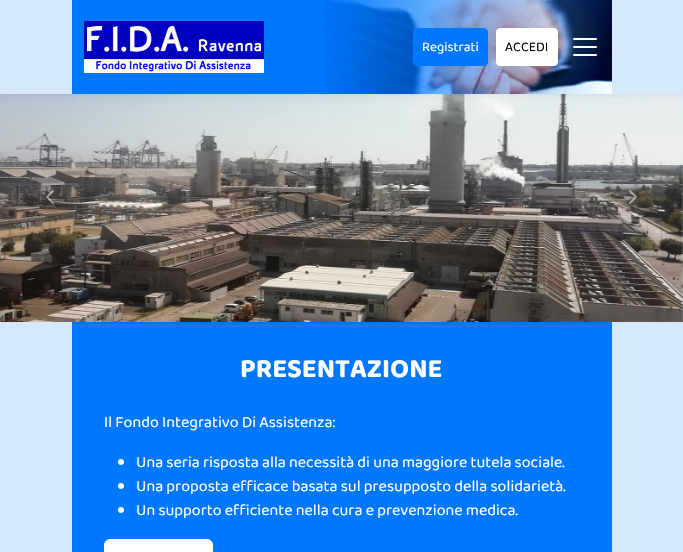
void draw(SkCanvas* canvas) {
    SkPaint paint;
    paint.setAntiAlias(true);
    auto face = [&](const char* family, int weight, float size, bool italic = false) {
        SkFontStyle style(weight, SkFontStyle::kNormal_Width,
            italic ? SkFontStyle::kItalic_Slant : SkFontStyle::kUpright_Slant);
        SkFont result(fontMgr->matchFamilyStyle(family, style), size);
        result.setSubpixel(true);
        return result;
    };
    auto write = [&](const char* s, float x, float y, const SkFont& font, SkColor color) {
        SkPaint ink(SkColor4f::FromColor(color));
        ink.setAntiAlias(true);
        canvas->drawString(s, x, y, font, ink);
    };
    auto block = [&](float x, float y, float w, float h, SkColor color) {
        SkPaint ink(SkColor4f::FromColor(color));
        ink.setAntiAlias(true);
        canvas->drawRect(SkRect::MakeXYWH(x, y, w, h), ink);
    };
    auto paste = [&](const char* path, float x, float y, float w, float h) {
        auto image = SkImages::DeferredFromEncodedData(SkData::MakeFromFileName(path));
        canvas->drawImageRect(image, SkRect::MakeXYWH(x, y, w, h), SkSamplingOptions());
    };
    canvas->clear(SkColorSetRGB(214, 232, 252));
    paste("pic4.png", 0, 94, 683, 228);
    paint.setColor(SkColorSetARGB(26, 0, 0, 0));
    paint.setMaskFilter(SkMaskFilter::MakeBlur(kNormal_SkBlurStyle, 3.5f));
    canvas->drawRect(SkRect::MakeXYWH(0, 0, 683, 94), paint);
    paint.setMaskFilter(nullptr);
    block(0, 0, 683, 94, SkColorSetRGB(214, 232, 252));
    block(72, 0, 249, 94, SkColorSetRGB(0, 119, 255));
    paste("pic1.png", 321, 0, 291, 94);
    paste("pic2.png", 83, 21, 181, 52);
    paint.setColor(SkColorSetRGB(0, 119, 255));
    canvas->drawRoundRect(SkRect::MakeXYWH(413.5f, 28.5f, 74, 37), 3.5f, 3.5f, paint);
    paint.setStyle(SkPaint::kStroke_Style);
    paint.setStrokeWidth(1);
    canvas->drawRoundRect(SkRect::MakeXYWH(413.5f, 28.5f, 74, 37), 3.5f, 3.5f, paint);
    auto kFont1 = face("Baloo 2", 400, 13.5f);
    write("Registrati", 422, 51, kFont1, SK_ColorWHITE);
    paint.setStyle(SkPaint::kFill_Style);
    paint.setColor(SK_ColorWHITE);
    canvas->drawRoundRect(SkRect::MakeXYWH(496.5f, 28.5f, 61, 37), 3.5f, 3.5f, paint);
    paint.setStyle(SkPaint::kStroke_Style);
    canvas->drawRoundRect(SkRect::MakeXYWH(496.5f, 28.5f, 61, 37), 3.5f, 3.5f, paint);
    write("ACCEDI", 505, 51, kFont1, SK_ColorBLACK);
    paste("pic3.png", 573, 38, 24, 18);
    paste("pic5.png", 46, 190, 8, 14);
    paste("pic6.png", 629, 190, 8, 14);
    block(72, 322, 540, 230, SkColorSetRGB(0, 119, 255));
    auto kFont2 = face("Baloo 2", 700, 27.25f);
    write("PRESENTAZIONE", 240, 377, kFont2, SK_ColorWHITE);
    auto kFont3 = face("Baloo 2", 400, 16);
    write("Il Fondo Integrativo Di Assistenza:", 104, 427, kFont3, SK_ColorWHITE);
    paint.setStyle(SkPaint::kFill_Style);
    canvas->drawCircle(121, 462, 3, paint);
    write("Una seria risposta alla necessità di una maggiore tutela sociale.", 136, 467, kFont3, SK_ColorWHITE);
    canvas->drawCircle(121, 486, 3, paint);
    write("Una proposta efficace basata sul presupposto della solidarietà.", 136, 491, kFont3, SK_ColorWHITE);
    canvas->drawCircle(121, 510, 3, paint);
    write("Un supporto efficiente nella cura e prevenzione medica.", 136, 515, kFont3, SK_ColorWHITE);
    canvas->drawRoundRect(SkRect::MakeXYWH(104.5f, 539.5f, 108, 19), 5.5f, 5.5f, paint);
    paint.setStyle(SkPaint::kStroke_Style);
    canvas->drawRoundRect(SkRect::MakeXYWH(104.5f, 539.5f, 108, 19), 5.5f, 5.5f, paint);
}
